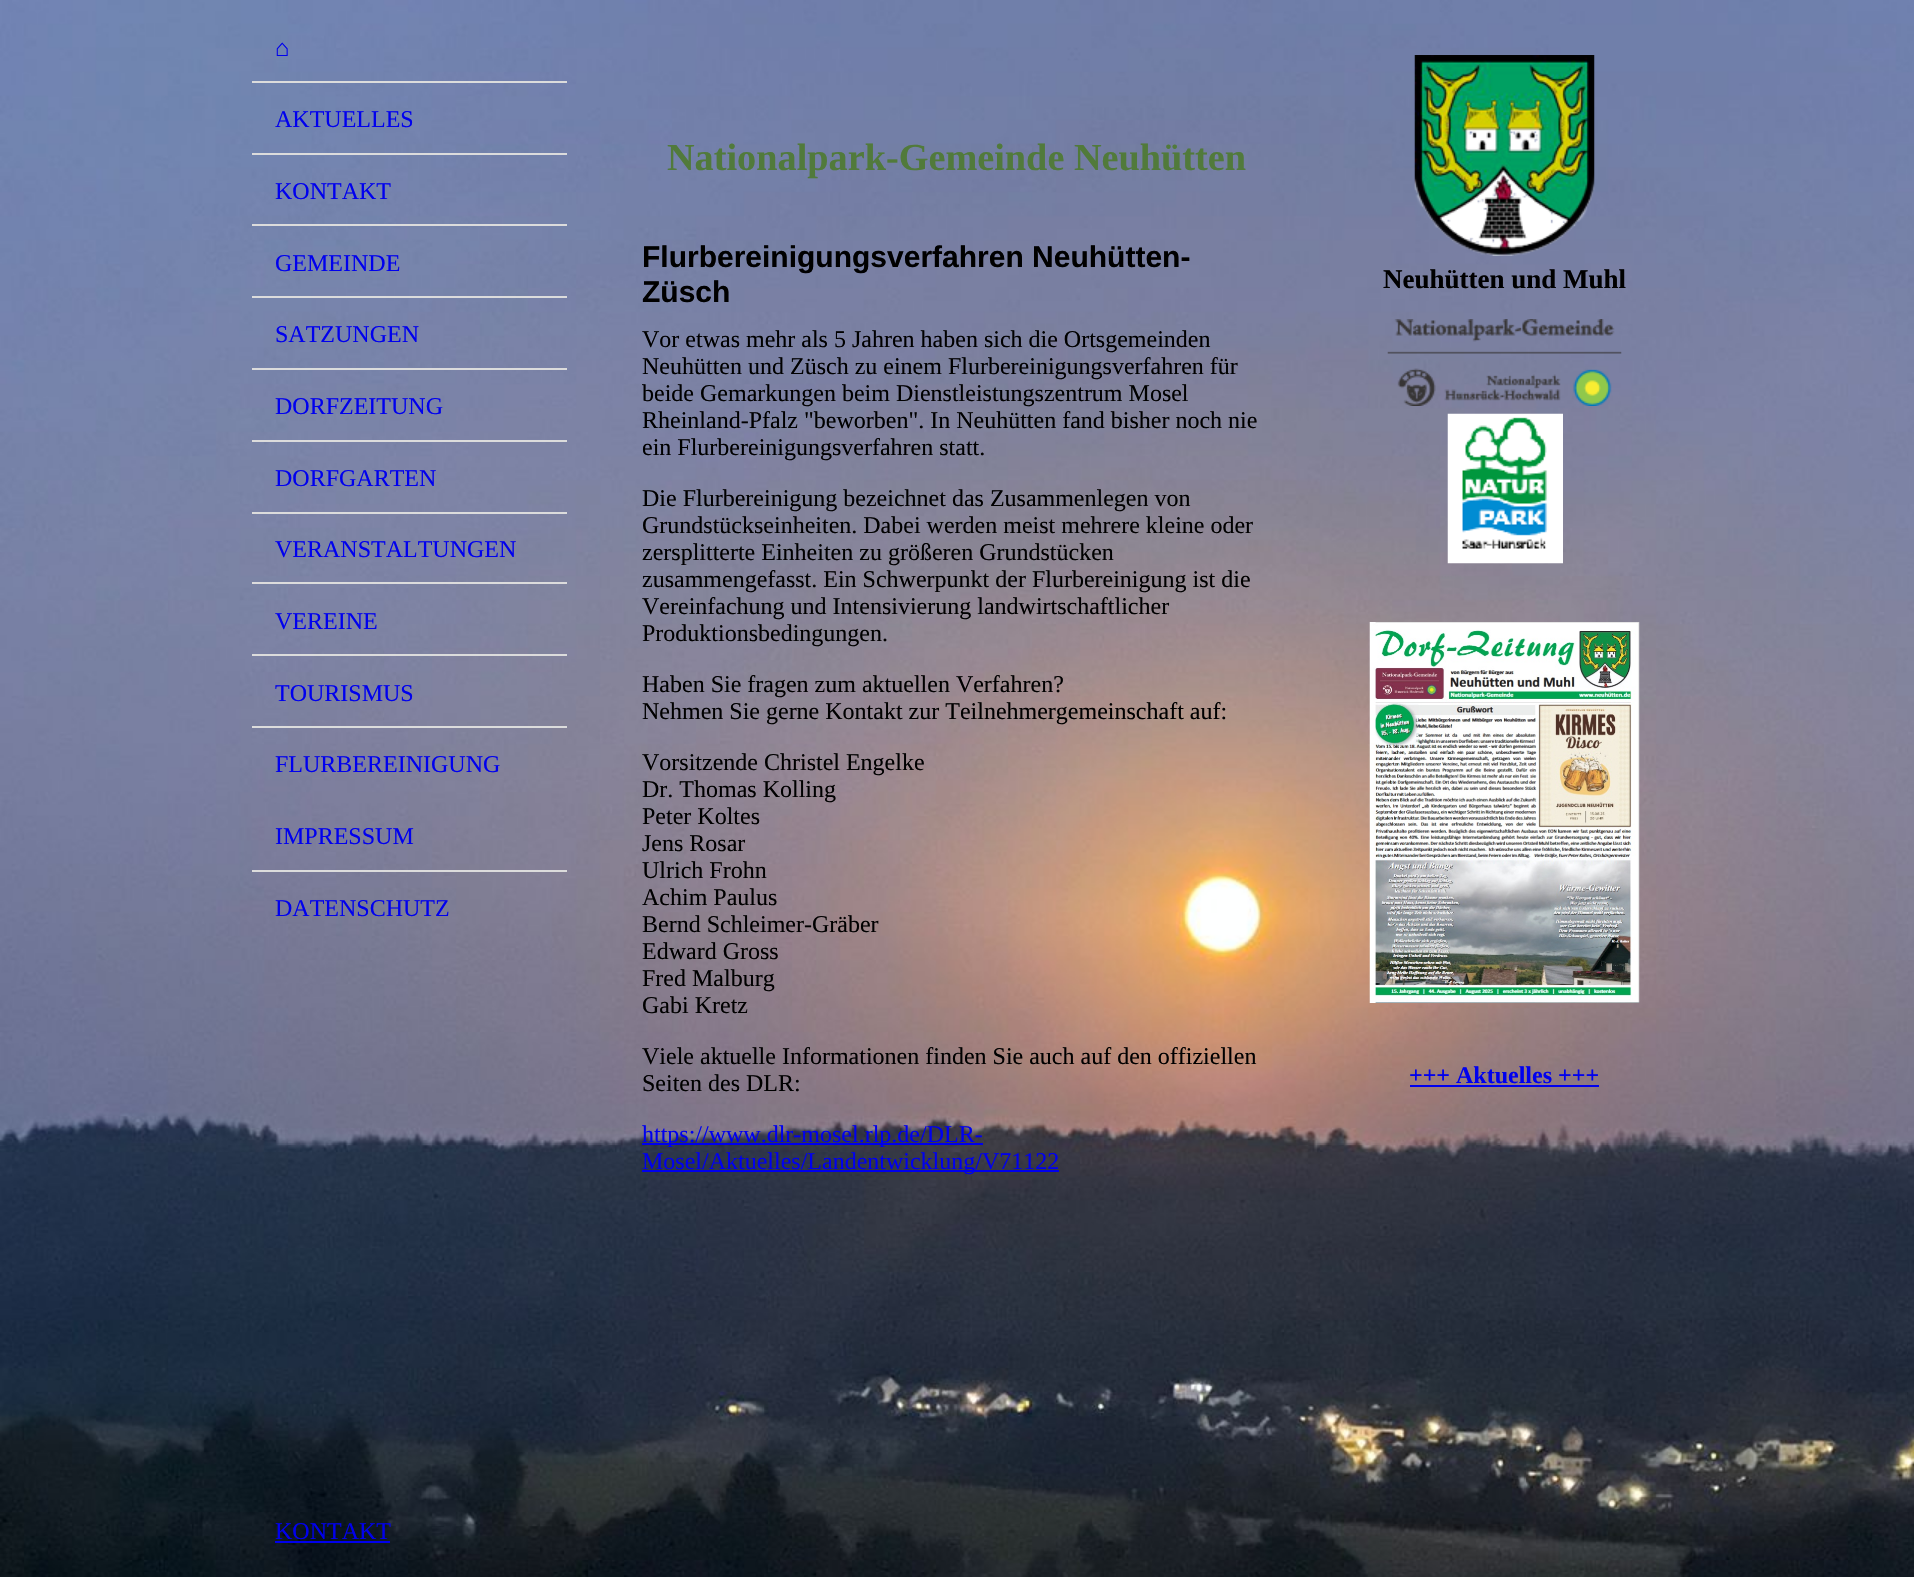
void draw(SkCanvas* canvas) {
    SkPaint paint;
    paint.setAntiAlias(true);
    auto face = [&](const char* family, int weight, float size, bool italic = false) {
        SkFontStyle style(weight, SkFontStyle::kNormal_Width,
            italic ? SkFontStyle::kItalic_Slant : SkFontStyle::kUpright_Slant);
        SkFont result(fontMgr->matchFamilyStyle(family, style), size);
        result.setSubpixel(true);
        return result;
    };
    auto write = [&](const char* s, float x, float y, const SkFont& font, SkColor color) {
        SkPaint ink(SkColor4f::FromColor(color));
        ink.setAntiAlias(true);
        canvas->drawString(s, x, y, font, ink);
    };
    auto block = [&](float x, float y, float w, float h, SkColor color) {
        SkPaint ink(SkColor4f::FromColor(color));
        ink.setAntiAlias(true);
        canvas->drawRect(SkRect::MakeXYWH(x, y, w, h), ink);
    };
    auto paste = [&](const char* path, float x, float y, float w, float h) {
        auto image = SkImages::DeferredFromEncodedData(SkData::MakeFromFileName(path));
        canvas->drawImageRect(image, SkRect::MakeXYWH(x, y, w, h), SkSamplingOptions());
    };
    canvas->clear(SK_ColorWHITE);
    paste("pic1.png", 0, 0, 1914, 1577);
    block(252, 81, 315, 2, SkColorSetRGB(220, 220, 220));
    auto kFont1 = face("Liberation Serif", 400, 24);
    write("⌂", 275, 56, kFont1, SkColorSetRGB(0, 0, 238));
    block(252, 153, 315, 2, SkColorSetRGB(220, 220, 220));
    write("AKTUELLES", 275, 127, kFont1, SkColorSetRGB(0, 0, 238));
    block(252, 224, 315, 2, SkColorSetRGB(220, 220, 220));
    write("KONTAKT", 275, 199, kFont1, SkColorSetRGB(0, 0, 238));
    block(252, 296, 315, 2, SkColorSetRGB(220, 220, 220));
    write("GEMEINDE", 275, 271, kFont1, SkColorSetRGB(0, 0, 238));
    block(252, 368, 315, 2, SkColorSetRGB(220, 220, 220));
    write("SATZUNGEN", 275, 342, kFont1, SkColorSetRGB(0, 0, 238));
    block(252, 440, 315, 2, SkColorSetRGB(220, 220, 220));
    write("DORFZEITUNG", 275, 414, kFont1, SkColorSetRGB(0, 0, 238));
    block(252, 512, 315, 2, SkColorSetRGB(220, 220, 220));
    write("DORFGARTEN", 275, 486, kFont1, SkColorSetRGB(0, 0, 238));
    block(252, 582, 315, 2, SkColorSetRGB(220, 220, 220));
    write("VERANSTALTUNGEN", 275, 557, kFont1, SkColorSetRGB(0, 0, 238));
    block(252, 654, 315, 2, SkColorSetRGB(220, 220, 220));
    write("VEREINE", 275, 629, kFont1, SkColorSetRGB(0, 0, 238));
    block(252, 726, 315, 2, SkColorSetRGB(220, 220, 220));
    write("TOURISMUS", 275, 701, kFont1, SkColorSetRGB(0, 0, 238));
    write("FLURBEREINIGUNG", 275, 772, kFont1, SkColorSetRGB(0, 0, 238));
    block(252, 870, 315, 2, SkColorSetRGB(220, 220, 220));
    write("IMPRESSUM", 275, 844, kFont1, SkColorSetRGB(0, 0, 238));
    write("DATENSCHUTZ", 275, 916, kFont1, SkColorSetRGB(0, 0, 238));
    auto kFont2 = face("Liberation Serif", 700, 38.25f);
    write("Nationalpark-Gemeinde Neuhütten", 667, 170, kFont2, SkColorSetRGB(81, 122, 59));
    auto kFont3 = face("Liberation Sans", 700, 30);
    write("Flurbereinigungsverfahren Neuhütten-", 642, 267, kFont3, SK_ColorBLACK);
    write("Züsch", 642, 302, kFont3, SK_ColorBLACK);
    write("Vor etwas mehr als 5 Jahren haben sich die Ortsgemeinden", 642, 347, kFont1, SK_ColorBLACK);
    write("Neuhütten und Züsch zu einem Flurbereinigungsverfahren für", 642, 374, kFont1, SK_ColorBLACK);
    write("beide Gemarkungen beim Dienstleistungszentrum Mosel", 642, 401, kFont1, SK_ColorBLACK);
    write("Rheinland-Pfalz \"beworben\". In Neuhütten fand bisher noch nie", 642, 428, kFont1, SK_ColorBLACK);
    write("ein Flurbereinigungsverfahren statt.", 642, 455, kFont1, SK_ColorBLACK);
    write("Die Flurbereinigung bezeichnet das Zusammenlegen von", 642, 506, kFont1, SK_ColorBLACK);
    write("Grundstückseinheiten. Dabei werden meist mehrere kleine oder", 642, 533, kFont1, SK_ColorBLACK);
    write("zersplitterte Einheiten zu größeren Grundstücken", 642, 560, kFont1, SK_ColorBLACK);
    write("zusammengefasst. Ein Schwerpunkt der Flurbereinigung ist die", 642, 587, kFont1, SK_ColorBLACK);
    write("Vereinfachung und Intensivierung landwirtschaftlicher", 642, 614, kFont1, SK_ColorBLACK);
    write("Produktionsbedingungen.", 642, 641, kFont1, SK_ColorBLACK);
    write("Haben Sie fragen zum aktuellen Verfahren?", 642, 692, kFont1, SK_ColorBLACK);
    write("Nehmen Sie gerne Kontakt zur Teilnehmergemeinschaft auf:", 642, 719, kFont1, SK_ColorBLACK);
    write("Vorsitzende Christel Engelke", 642, 770, kFont1, SK_ColorBLACK);
    write("Dr. Thomas Kolling", 642, 797, kFont1, SK_ColorBLACK);
    write("Peter Koltes", 642, 824, kFont1, SK_ColorBLACK);
    write("Jens Rosar", 642, 851, kFont1, SK_ColorBLACK);
    write("Ulrich Frohn", 642, 878, kFont1, SK_ColorBLACK);
    write("Achim Paulus", 642, 905, kFont1, SK_ColorBLACK);
    write("Bernd Schleimer-Gräber", 642, 932, kFont1, SK_ColorBLACK);
    write("Edward Gross", 642, 959, kFont1, SK_ColorBLACK);
    write("Fred Malburg", 642, 986, kFont1, SK_ColorBLACK);
    write("Gabi Kretz", 642, 1013, kFont1, SK_ColorBLACK);
    write("Viele aktuelle Informationen finden Sie auch auf den offiziellen", 642, 1064, kFont1, SK_ColorBLACK);
    write("Seiten des DLR:", 642, 1091, kFont1, SK_ColorBLACK);
    block(642, 1143, 341, 2, SkColorSetRGB(0, 0, 238));
    write("https://www.dlr-mosel.rlp.de/DLR-", 642, 1142, kFont1, SkColorSetRGB(0, 0, 238));
    block(642, 1170, 417, 2, SkColorSetRGB(0, 0, 238));
    write("Mosel/Aktuelles/Landentwicklung/V71122", 642, 1169, kFont1, SkColorSetRGB(0, 0, 238));
    paste("pic2.png", 1414, 55, 181, 201);
    auto kFont4 = face("Liberation Serif", 700, 27);
    write("Neuhütten und Muhl", 1383, 288, kFont4, SK_ColorBLACK);
    paste("pic3.png", 1387, 319, 235, 87);
    paste("pic4.png", 1447, 413, 116, 151);
    paste("pic5.png", 1369, 622, 271, 381);
    auto kFont5 = face("Liberation Serif", 700, 24);
    write("+++ Aktuelles +++", 1409, 1083, kFont5, SkColorSetRGB(0, 0, 238));
    block(1410, 1085, 189, 2, SkColorSetRGB(0, 0, 238));
    write("KONTAKT", 275, 1539, kFont1, SkColorSetRGB(0, 0, 238));
    block(275, 1541, 115, 2, SkColorSetRGB(0, 0, 238));
}
